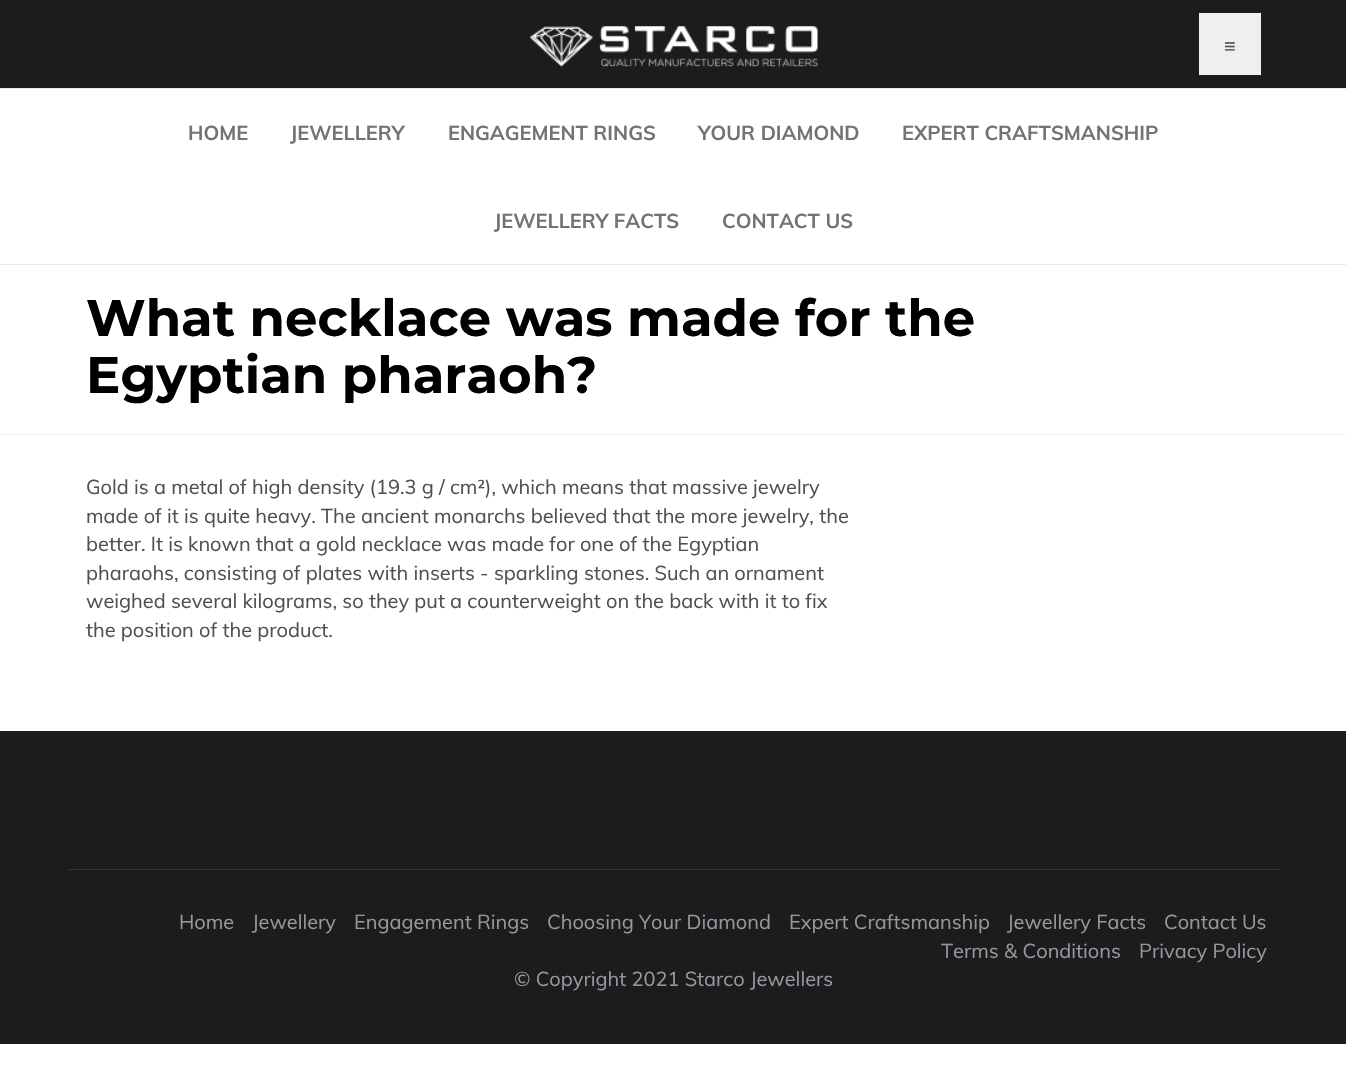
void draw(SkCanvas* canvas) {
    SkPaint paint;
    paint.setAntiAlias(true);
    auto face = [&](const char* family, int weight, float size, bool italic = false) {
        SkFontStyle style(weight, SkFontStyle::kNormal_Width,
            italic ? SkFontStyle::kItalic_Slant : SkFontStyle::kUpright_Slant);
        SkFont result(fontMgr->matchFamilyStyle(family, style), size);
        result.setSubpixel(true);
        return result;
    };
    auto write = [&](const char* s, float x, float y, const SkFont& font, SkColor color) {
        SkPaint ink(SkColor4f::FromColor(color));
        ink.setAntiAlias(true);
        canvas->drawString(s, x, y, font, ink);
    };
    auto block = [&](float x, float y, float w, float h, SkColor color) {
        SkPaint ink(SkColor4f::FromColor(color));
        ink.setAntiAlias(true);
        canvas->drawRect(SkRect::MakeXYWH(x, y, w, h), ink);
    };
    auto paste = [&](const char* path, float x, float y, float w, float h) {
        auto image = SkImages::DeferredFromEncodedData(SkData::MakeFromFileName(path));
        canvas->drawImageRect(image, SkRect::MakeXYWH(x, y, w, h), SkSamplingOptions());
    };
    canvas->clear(SK_ColorWHITE);
    block(0, 0, 1346, 88, SkColorSetRGB(27, 28, 30));
    block(0, 264, 1346, 1, SkColorSetRGB(232, 234, 237));
    paste("pic1.png", 530, 26, 288, 41);
    block(1199, 13, 62, 62, SkColorSetRGB(239, 239, 239));
    auto kFont1 = face("Liberation Sans", 400, 20);
    write("≡", 1224, 53, kFont1, SkColorSetRGB(80, 80, 80));
    block(0, 88, 1346, 1, SkColorSetRGB(232, 234, 237));
    auto kFont2 = face("Muli", 700, 20);
    write("HOME", 188, 140, kFont2, SkColorSetRGB(115, 115, 115));
    write("JEWELLERY", 290, 140, kFont2, SkColorSetRGB(115, 115, 115));
    write("ENGAGEMENT RINGS", 448, 140, kFont2, SkColorSetRGB(115, 115, 115));
    write("YOUR DIAMOND", 698, 140, kFont2, SkColorSetRGB(115, 115, 115));
    write("EXPERT CRAFTSMANSHIP", 902, 140, kFont2, SkColorSetRGB(115, 115, 115));
    write("JEWELLERY FACTS", 494, 228, kFont2, SkColorSetRGB(115, 115, 115));
    write("CONTACT US", 722, 228, kFont2, SkColorSetRGB(115, 115, 115));
    block(0, 434, 1346, 1, SkColorSetRGB(238, 238, 238));
    auto kFont3 = face("Montserrat", 700, 51.3f);
    write("What necklace was made for the", 86, 336, kFont3, SK_ColorBLACK);
    write("Egyptian pharaoh?", 86, 393, kFont3, SK_ColorBLACK);
    auto kFont4 = face("Muli", 400, 20);
    write("Gold is a metal of high density (19.3 g / cm²), which means that massive jewelry", 86, 494, kFont4, SkColorSetRGB(80, 80, 80));
    write("made of it is quite heavy. The ancient monarchs believed that the more jewelry, the", 86, 523, kFont4, SkColorSetRGB(80, 80, 80));
    write("better. It is known that a gold necklace was made for one of the Egyptian", 86, 551, kFont4, SkColorSetRGB(80, 80, 80));
    write("pharaohs, consisting of plates with inserts - sparkling stones. Such an ornament", 86, 580, kFont4, SkColorSetRGB(80, 80, 80));
    write("weighed several kilograms, so they put a counterweight on the back with it to fix", 86, 608, kFont4, SkColorSetRGB(80, 80, 80));
    write("the position of the product.", 86, 637, kFont4, SkColorSetRGB(80, 80, 80));
    block(0, 731, 1346, 313, SkColorSetRGB(27, 28, 30));
    block(68, 869, 1212, 1, SkColorSetRGB(50, 51, 53));
    write("Home", 179, 929, kFont4, SkColorSetRGB(151, 152, 155));
    write("Jewellery", 252, 929, kFont4, SkColorSetRGB(151, 152, 155));
    write("Engagement Rings", 354, 929, kFont4, SkColorSetRGB(151, 152, 155));
    write("Choosing Your Diamond", 547, 929, kFont4, SkColorSetRGB(151, 152, 155));
    write("Expert Craftsmanship", 789, 929, kFont4, SkColorSetRGB(151, 152, 155));
    write("Jewellery Facts", 1007, 929, kFont4, SkColorSetRGB(151, 152, 155));
    write("Contact Us", 1164, 929, kFont4, SkColorSetRGB(151, 152, 155));
    write("Terms & Conditions", 941, 958, kFont4, SkColorSetRGB(151, 152, 155));
    write("Privacy Policy", 1139, 958, kFont4, SkColorSetRGB(151, 152, 155));
    write("© Copyright 2021 Starco Jewellers", 514, 986, kFont4, SkColorSetRGB(151, 152, 155));
}
